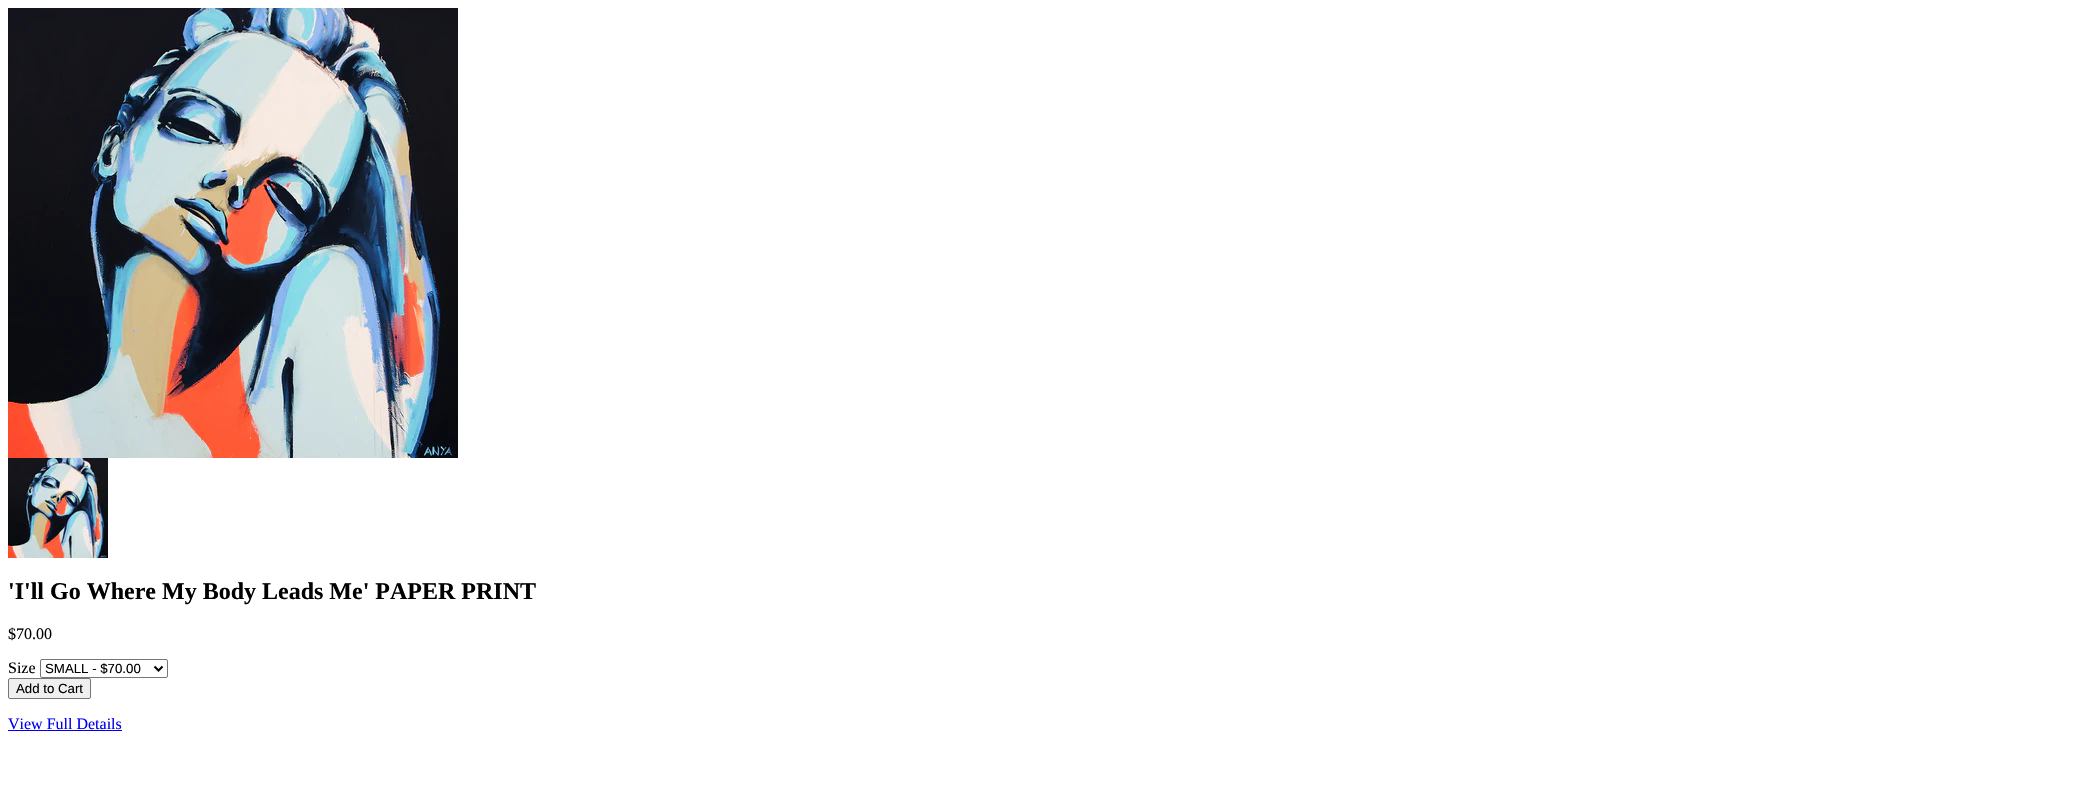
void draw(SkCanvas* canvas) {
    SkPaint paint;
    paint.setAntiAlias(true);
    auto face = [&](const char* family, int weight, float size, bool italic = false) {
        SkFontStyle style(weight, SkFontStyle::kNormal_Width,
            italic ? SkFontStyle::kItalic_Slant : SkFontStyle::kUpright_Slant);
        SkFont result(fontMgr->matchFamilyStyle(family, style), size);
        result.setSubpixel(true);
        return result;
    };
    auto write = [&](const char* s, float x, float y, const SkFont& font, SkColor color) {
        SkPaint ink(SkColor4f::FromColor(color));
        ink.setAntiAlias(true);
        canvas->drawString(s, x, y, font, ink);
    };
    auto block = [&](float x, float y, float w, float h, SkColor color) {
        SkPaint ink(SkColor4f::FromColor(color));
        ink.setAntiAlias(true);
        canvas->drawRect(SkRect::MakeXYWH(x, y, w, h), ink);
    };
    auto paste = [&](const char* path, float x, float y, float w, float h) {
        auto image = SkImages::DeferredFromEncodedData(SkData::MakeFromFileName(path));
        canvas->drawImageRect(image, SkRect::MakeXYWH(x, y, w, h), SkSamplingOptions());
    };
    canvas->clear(SK_ColorWHITE);
    paste("pic1.png", 8, 8, 450, 450);
    paste("pic2.png", 8, 458, 100, 100);
    auto kFont1 = face("Liberation Serif", 700, 24);
    write("'I'll Go Where My Body Leads Me' PAPER PRINT", 8, 599, kFont1, SK_ColorBLACK);
    auto kFont2 = face("Liberation Serif", 400, 16);
    write("$70.00", 8, 639, kFont2, SK_ColorBLACK);
    write("Size", 8, 673, kFont2, SK_ColorBLACK);
    paint.setStyle(SkPaint::kStroke_Style);
    paint.setStrokeWidth(1);
    paint.setColor(SkColorSetRGB(118, 118, 118));
    canvas->drawRoundRect(SkRect::MakeXYWH(40.5f, 659.5f, 127, 18), 1.5f, 1.5f, paint);
    paint.setStrokeWidth(2);
    paint.setColor(SK_ColorBLACK);
    canvas->drawPath(SkPathBuilder().moveTo(154.5f, 666.5f).lineTo(158.5f, 670.5f).lineTo(162.5f, 666.5f).detach(), paint);
    auto kFont3 = face("Liberation Sans", 400, 13.25f);
    write("SMALL - $70.00", 45, 673, kFont3, SK_ColorBLACK);
    paint.setStyle(SkPaint::kFill_Style);
    paint.setColor(SkColorSetRGB(239, 239, 239));
    canvas->drawRoundRect(SkRect::MakeXYWH(8.5f, 678.5f, 82, 20), 1.5f, 1.5f, paint);
    paint.setStyle(SkPaint::kStroke_Style);
    paint.setStrokeWidth(1);
    paint.setColor(SkColorSetRGB(118, 118, 118));
    canvas->drawRoundRect(SkRect::MakeXYWH(8.5f, 678.5f, 82, 20), 1.5f, 1.5f, paint);
    write("Add to Cart", 16, 693, kFont3, SK_ColorBLACK);
    write("View Full Details", 8, 729, kFont2, SkColorSetRGB(0, 0, 238));
    block(8, 730, 114, 1, SkColorSetRGB(0, 0, 238));
}
